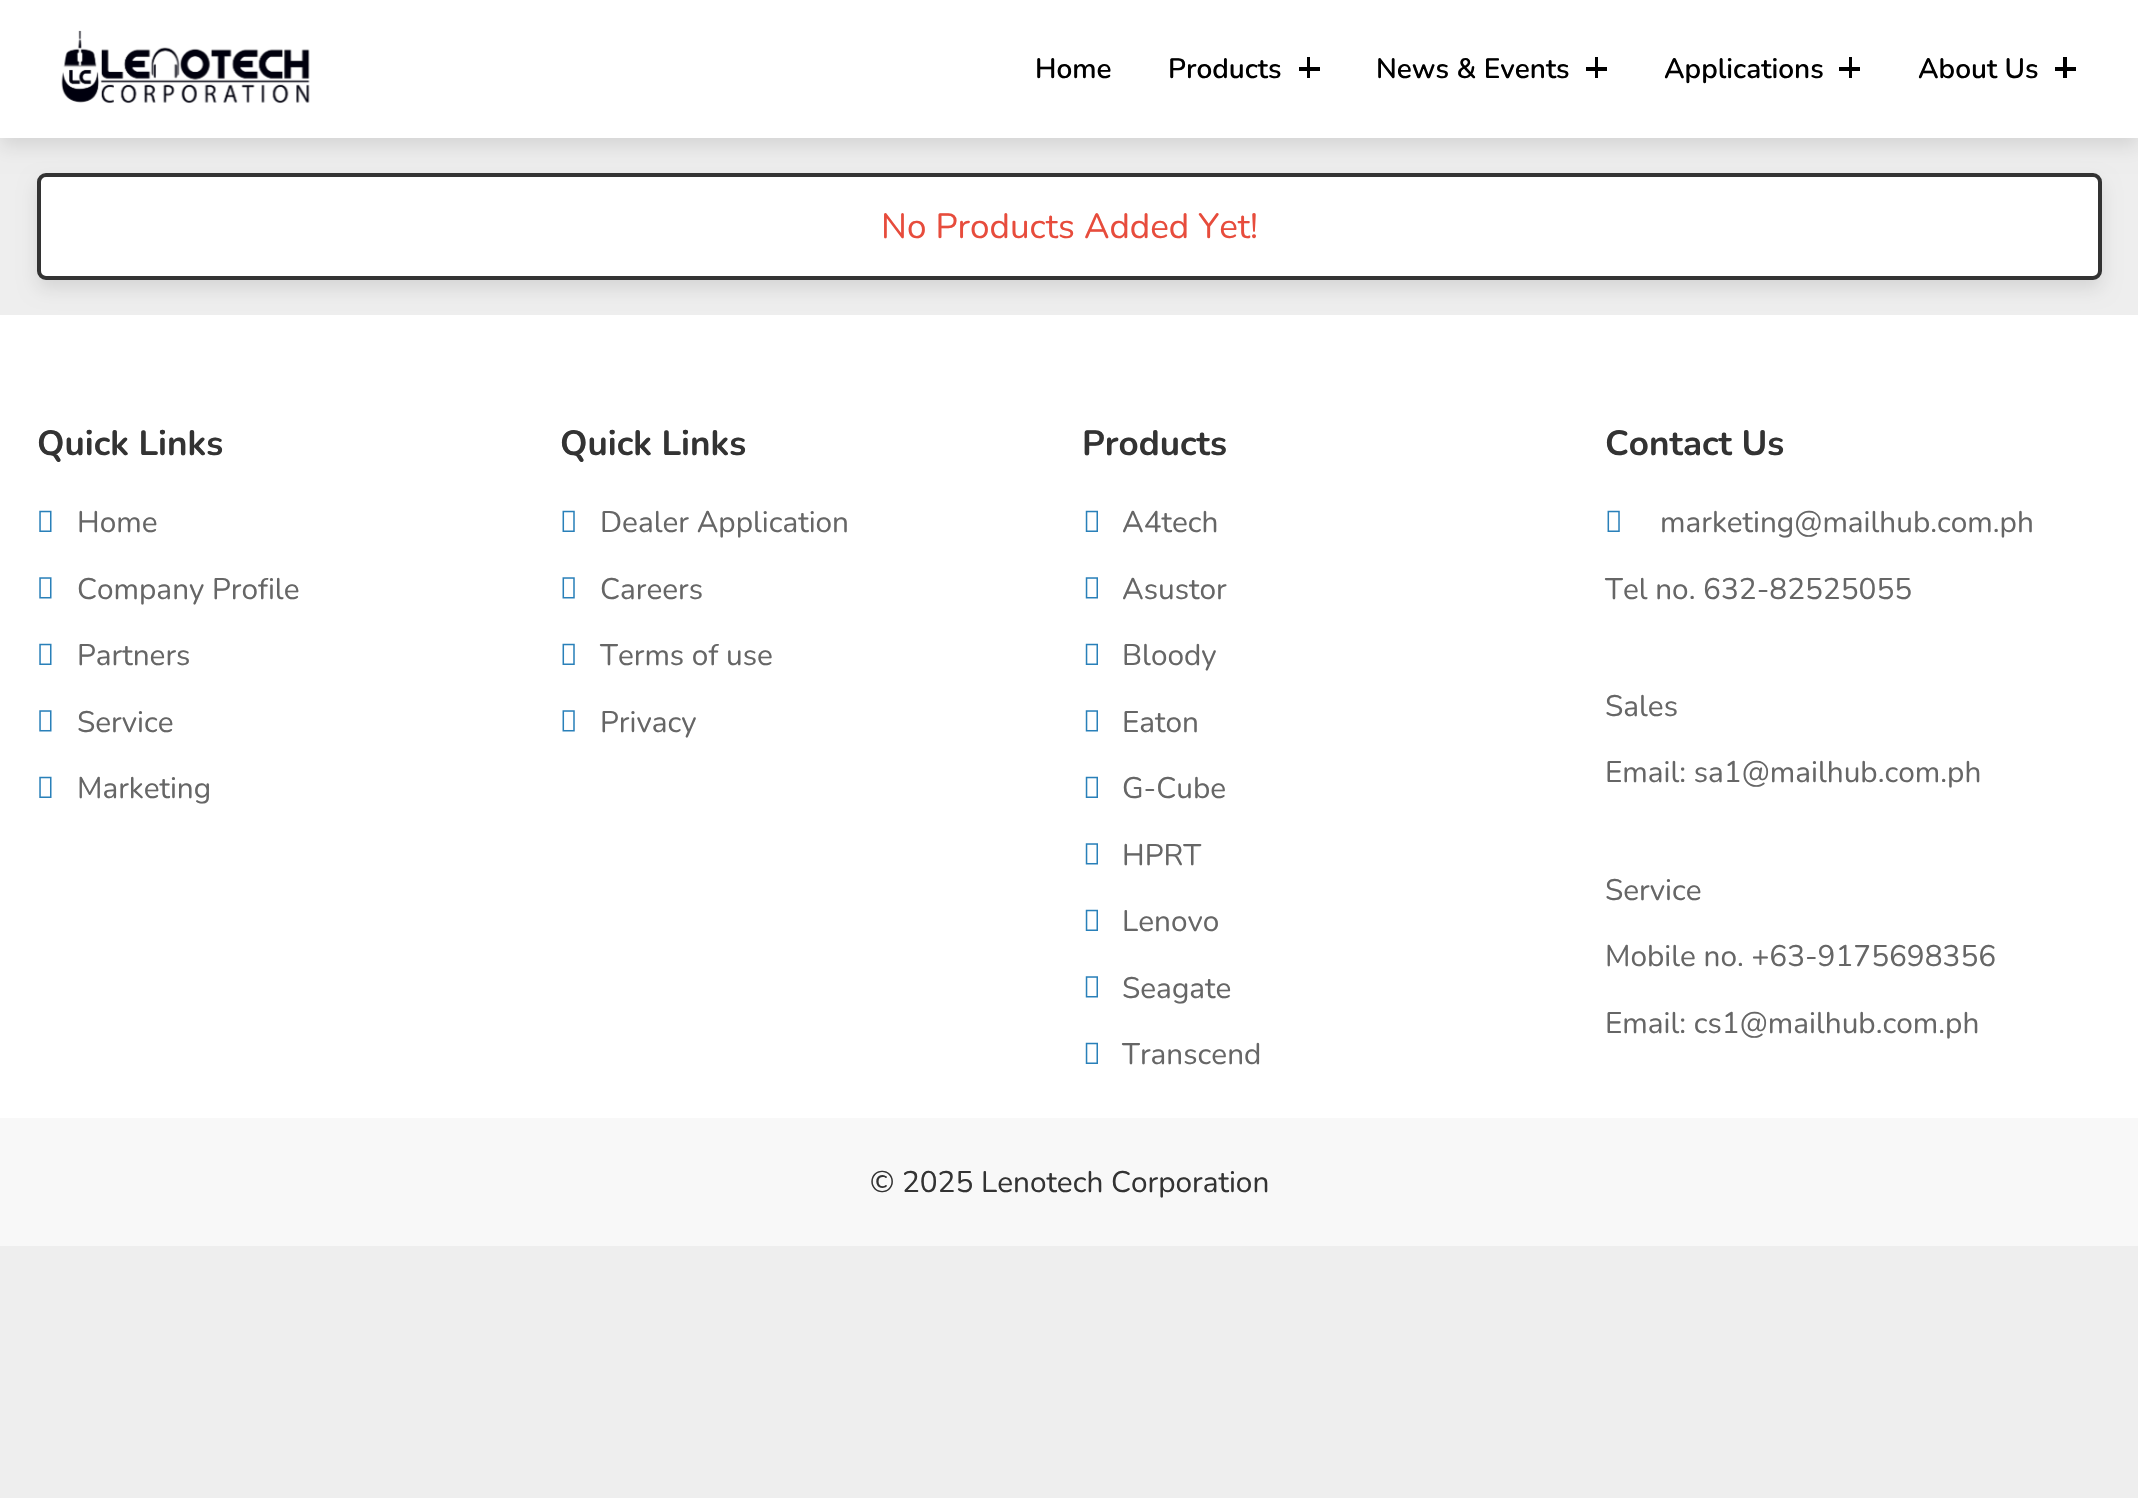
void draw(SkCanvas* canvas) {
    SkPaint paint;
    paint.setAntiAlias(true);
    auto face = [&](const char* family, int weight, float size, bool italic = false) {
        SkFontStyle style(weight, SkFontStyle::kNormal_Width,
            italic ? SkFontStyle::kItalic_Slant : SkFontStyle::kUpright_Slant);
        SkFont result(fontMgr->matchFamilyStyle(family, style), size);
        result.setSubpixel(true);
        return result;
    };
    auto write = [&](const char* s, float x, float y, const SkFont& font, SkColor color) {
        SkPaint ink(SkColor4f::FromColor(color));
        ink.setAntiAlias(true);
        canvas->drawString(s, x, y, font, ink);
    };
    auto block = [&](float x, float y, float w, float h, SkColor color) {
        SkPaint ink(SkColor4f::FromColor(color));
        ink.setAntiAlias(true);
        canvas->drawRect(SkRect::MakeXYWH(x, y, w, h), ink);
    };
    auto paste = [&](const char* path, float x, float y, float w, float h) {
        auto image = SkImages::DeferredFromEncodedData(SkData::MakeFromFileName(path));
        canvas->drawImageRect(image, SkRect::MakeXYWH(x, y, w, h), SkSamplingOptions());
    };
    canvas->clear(SkColorSetRGB(238, 238, 238));
    paint.setColor(SkColorSetARGB(26, 0, 0, 0));
    paint.setMaskFilter(SkMaskFilter::MakeBlur(kNormal_SkBlurStyle, 9));
    canvas->drawRoundRect(SkRect::MakeXYWH(37, 182, 2065, 107), 9, 9, paint);
    paint.setMaskFilter(nullptr);
    paint.setColor(SK_ColorWHITE);
    canvas->drawRoundRect(SkRect::MakeXYWH(39, 175, 2061, 103), 7, 7, paint);
    paint.setStyle(SkPaint::kStroke_Style);
    paint.setStrokeWidth(4);
    paint.setColor(SkColorSetRGB(51, 51, 51));
    canvas->drawRoundRect(SkRect::MakeXYWH(39, 175, 2061, 103), 7, 7, paint);
    paint.setStyle(SkPaint::kFill_Style);
    paint.setColor(SkColorSetARGB(26, 0, 0, 0));
    paint.setMaskFilter(SkMaskFilter::MakeBlur(kNormal_SkBlurStyle, 9));
    canvas->drawRect(SkRect::MakeXYWH(0, 9, 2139, 138), paint);
    paint.setMaskFilter(nullptr);
    block(0, 0, 2138, 138, SK_ColorWHITE);
    paste("pic1.png", 61, 30, 249, 74);
    auto kFont1 = face("Nunito", 600, 28);
    write("Home", 1035, 78, kFont1, SK_ColorBLACK);
    write("Products", 1168, 78, kFont1, SK_ColorBLACK);
    block(1299, 67, 21, 4, SK_ColorBLACK);
    block(1307, 57, 3, 21, SK_ColorBLACK);
    write("News & Events", 1376, 78, kFont1, SK_ColorBLACK);
    block(1586, 67, 21, 4, SK_ColorBLACK);
    block(1595, 57, 3, 21, SK_ColorBLACK);
    write("Applications", 1664, 78, kFont1, SK_ColorBLACK);
    block(1839, 67, 21, 4, SK_ColorBLACK);
    block(1849, 57, 3, 21, SK_ColorBLACK);
    write("About Us", 1918, 78, kFont1, SK_ColorBLACK);
    block(2055, 67, 21, 4, SK_ColorBLACK);
    block(2063, 57, 4, 21, SK_ColorBLACK);
    auto kFont2 = face("Nunito", 400, 35);
    write("No Products Added Yet!", 881, 238, kFont2, SkColorSetRGB(231, 76, 60));
    block(0, 315, 2138, 803, SK_ColorWHITE);
    auto kFont3 = face("Nunito", 700, 35);
    write("Quick Links", 37, 455, kFont3, SkColorSetRGB(51, 51, 51));
    paste("pic2.png", 39, 510, 13, 22);
    auto kFont4 = face("Nunito", 400, 29.75f);
    write("Home", 77, 532, kFont4, SkColorSetRGB(102, 102, 102));
    paste("pic3.png", 39, 577, 13, 22);
    write("Company Profile", 77, 599, kFont4, SkColorSetRGB(102, 102, 102));
    paste("pic2.png", 39, 643, 13, 22);
    write("Partners", 77, 665, kFont4, SkColorSetRGB(102, 102, 102));
    paste("pic3.png", 39, 710, 13, 22);
    write("Service", 77, 732, kFont4, SkColorSetRGB(102, 102, 102));
    paste("pic2.png", 39, 776, 13, 22);
    write("Marketing", 77, 798, kFont4, SkColorSetRGB(102, 102, 102));
    write("Quick Links", 560, 455, kFont3, SkColorSetRGB(51, 51, 51));
    paste("pic4.png", 562, 510, 13, 22);
    write("Dealer Application", 600, 532, kFont4, SkColorSetRGB(102, 102, 102));
    paste("pic5.png", 562, 577, 13, 22);
    write("Careers", 600, 599, kFont4, SkColorSetRGB(102, 102, 102));
    paste("pic4.png", 562, 643, 13, 22);
    write("Terms of use", 600, 665, kFont4, SkColorSetRGB(102, 102, 102));
    paste("pic5.png", 562, 710, 13, 22);
    write("Privacy", 600, 732, kFont4, SkColorSetRGB(102, 102, 102));
    write("Products", 1082, 455, kFont3, SkColorSetRGB(51, 51, 51));
    paste("pic6.png", 1085, 510, 13, 22);
    write("A4tech", 1122, 532, kFont4, SkColorSetRGB(102, 102, 102));
    paste("pic7.png", 1085, 577, 13, 22);
    write("Asustor", 1122, 599, kFont4, SkColorSetRGB(102, 102, 102));
    paste("pic6.png", 1085, 643, 13, 22);
    write("Bloody", 1122, 665, kFont4, SkColorSetRGB(102, 102, 102));
    paste("pic7.png", 1085, 710, 13, 22);
    write("Eaton", 1122, 732, kFont4, SkColorSetRGB(102, 102, 102));
    paste("pic6.png", 1085, 776, 13, 22);
    write("G-Cube", 1122, 798, kFont4, SkColorSetRGB(102, 102, 102));
    paste("pic7.png", 1085, 843, 13, 22);
    write("HPRT", 1122, 865, kFont4, SkColorSetRGB(102, 102, 102));
    paste("pic6.png", 1085, 909, 13, 22);
    write("Lenovo", 1122, 931, kFont4, SkColorSetRGB(102, 102, 102));
    paste("pic7.png", 1085, 976, 13, 22);
    write("Seagate", 1122, 998, kFont4, SkColorSetRGB(102, 102, 102));
    paste("pic6.png", 1085, 1042, 13, 22);
    write("Transcend", 1122, 1064, kFont4, SkColorSetRGB(102, 102, 102));
    write("Contact Us", 1605, 455, kFont3, SkColorSetRGB(51, 51, 51));
    paste("pic8.png", 1607, 510, 13, 22);
    write("marketing@mailhub.com.ph", 1660, 532, kFont4, SkColorSetRGB(102, 102, 102));
    write("Tel no. 632-82525055", 1605, 599, kFont4, SkColorSetRGB(102, 102, 102));
    write("Sales", 1605, 716, kFont4, SkColorSetRGB(102, 102, 102));
    write("Email: sa1@mailhub.com.ph", 1605, 782, kFont4, SkColorSetRGB(102, 102, 102));
    write("Service", 1605, 900, kFont4, SkColorSetRGB(102, 102, 102));
    write("Mobile no. +63-9175698356", 1605, 966, kFont4, SkColorSetRGB(102, 102, 102));
    write("Email: cs1@mailhub.com.ph", 1605, 1033, kFont4, SkColorSetRGB(102, 102, 102));
    block(0, 1118, 2138, 128, SkColorSetRGB(248, 248, 248));
    write("© 2025 Lenotech Corporation", 870, 1192, kFont4, SkColorSetRGB(51, 51, 51));
}
